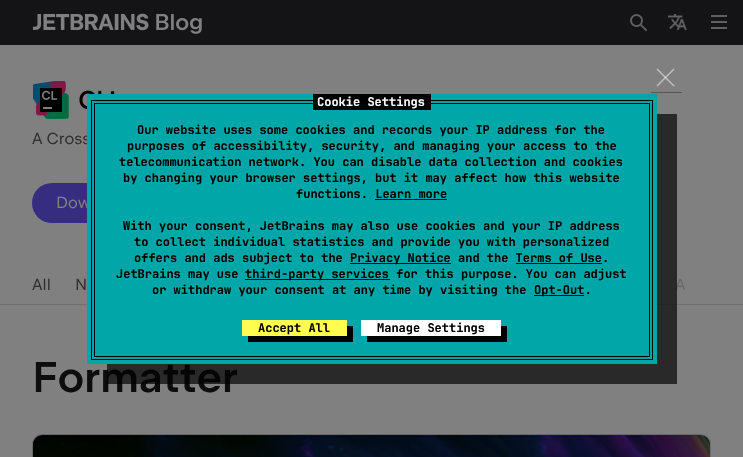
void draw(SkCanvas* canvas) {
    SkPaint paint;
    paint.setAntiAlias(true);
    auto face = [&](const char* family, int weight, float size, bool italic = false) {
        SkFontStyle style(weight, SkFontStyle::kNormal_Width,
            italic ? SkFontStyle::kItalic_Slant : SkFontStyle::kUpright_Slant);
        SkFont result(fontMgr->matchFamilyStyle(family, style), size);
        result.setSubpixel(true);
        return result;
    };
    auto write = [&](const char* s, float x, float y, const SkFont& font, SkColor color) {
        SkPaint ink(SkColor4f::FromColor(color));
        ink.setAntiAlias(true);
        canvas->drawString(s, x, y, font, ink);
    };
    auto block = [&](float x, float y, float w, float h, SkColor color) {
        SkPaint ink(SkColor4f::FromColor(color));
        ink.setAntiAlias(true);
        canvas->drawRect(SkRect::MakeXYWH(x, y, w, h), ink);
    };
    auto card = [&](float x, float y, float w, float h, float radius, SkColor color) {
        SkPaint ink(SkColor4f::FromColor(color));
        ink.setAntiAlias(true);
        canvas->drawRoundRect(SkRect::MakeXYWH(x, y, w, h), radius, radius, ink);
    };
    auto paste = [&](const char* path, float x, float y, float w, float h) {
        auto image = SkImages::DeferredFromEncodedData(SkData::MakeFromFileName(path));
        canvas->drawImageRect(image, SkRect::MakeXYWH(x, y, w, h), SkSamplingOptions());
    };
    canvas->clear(SkColorSetRGB(128, 128, 128));
    paste("pic4.png", 33, 81, 82, 38);
    card(32, 183, 125, 40, 20, SkColorSetRGB(54, 44, 128));
    auto kFont1 = face("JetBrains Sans", 400, 16);
    write("A", 675, 290, kFont1, SkColorSetRGB(47, 47, 48));
    {
        const SkColor colors[] = {SkColorSetARGB(0, 128, 128, 128), SkColorSetARGB(153, 128, 128, 128), SkColorSetRGB(128, 128, 128)};
        const float stops[] = {0, 0.5f, 1};
        const SkPoint ends[] = {{612, 280}, {727, 280}};
        paint.setShader(SkGradientShader::MakeLinear(ends, colors, stops, 3, SkTileMode::kClamp));
        paint.setAlpha(255);
    }
    canvas->drawRect(SkRect::MakeXYWH(675, 278, 10, 12), paint);
    block(0, 304, 743, 1, SkColorSetRGB(112, 112, 112));
    auto kFont2 = face("JetBrains Sans", 600, 43);
    write("Formatter", 32, 392, kFont2, SkColorSetRGB(13, 13, 14));
    paint.setShader(nullptr);
    paint.setColor(SkColorSetARGB(173, 0, 0, 0));
    canvas->drawPath(SkPathBuilder().moveTo(107, 364).lineTo(107, 384).lineTo(677, 384).lineTo(677, 114).lineTo(657, 114).lineTo(657, 364).close().detach(), paint);
    write("A Cross", 32, 144, kFont1, SkColorSetRGB(47, 47, 48));
    write("Dow", 56, 208, kFont1, SkColorSetRGB(128, 128, 128));
    block(87, 94, 570, 270, SkColorSetRGB(1, 167, 168));
    block(651, 92, 31, 1, SkColorSetRGB(87, 87, 88));
    paint.setColor(SkColorSetRGB(191, 191, 191));
    canvas->drawPath(SkPathBuilder().moveTo(656.5f, 85.5f).lineTo(673.5f, 68.5f).lineTo(674.5f, 69.5f).lineTo(657.5f, 86.5f).close().detach(), paint);
    paint.setColor(SkColorSetARGB(128, 255, 255, 255));
    canvas->drawPath(SkPathBuilder().moveTo(657.5f, 68.5f).lineTo(674.5f, 85.5f).lineTo(673.5f, 86.5f).lineTo(656.5f, 69.5f).close().detach(), paint);
    block(94, 103, 556, 1, SK_ColorBLACK);
    block(649, 103, 1, 254, SK_ColorBLACK);
    block(94, 103, 1, 217, SK_ColorBLACK);
    block(91, 100, 562, 1, SK_ColorBLACK);
    block(313, 94, 118, 16, SK_ColorBLACK);
    auto kFont3 = face("JetBrains Mono", 700, 12);
    write("Cookie Settings", 317, 106, kFont3, SK_ColorWHITE);
    block(652, 100, 1, 260, SK_ColorBLACK);
    block(91, 100, 1, 219, SK_ColorBLACK);
    write("Our website uses some cookies and records your IP address for the", 137, 134, kFont3, SK_ColorBLACK);
    write("purposes of accessibility, security, and managing your access to the", 127, 150, kFont3, SK_ColorBLACK);
    write("telecommunication network. You can disable data collection and cookies", 119, 166, kFont3, SK_ColorBLACK);
    write("by changing your browser settings, but it may affect how this website", 123, 182, kFont3, SK_ColorBLACK);
    write("functions. Learn more", 296, 198, kFont3, SK_ColorBLACK);
    block(375, 199, 72, 1, SK_ColorBLACK);
    write("With your consent, JetBrains may also use cookies and your IP address", 123, 230, kFont3, SK_ColorBLACK);
    write("to collect individual statistics and provide you with personalized", 134, 246, kFont3, SK_ColorBLACK);
    write("offers and ads subject to the", 134, 262, kFont3, SK_ColorBLACK);
    block(350, 263, 101, 1, SK_ColorBLACK);
    write("Privacy Notice and the Terms of Use.", 350, 262, kFont3, SK_ColorBLACK);
    block(516, 263, 86, 1, SK_ColorBLACK);
    write("JetBrains may use", 116, 278, kFont3, SK_ColorBLACK);
    block(245, 279, 145, 1, SK_ColorBLACK);
    write("third-party services for this purpose. You can adjust", 245, 278, kFont3, SK_ColorBLACK);
    write("or withdraw your consent at any time by visiting the", 152, 294, kFont3, SK_ColorBLACK);
    block(534, 295, 50, 1, SK_ColorBLACK);
    write("Opt-Out.", 534, 294, kFont3, SK_ColorBLACK);
    block(94, 356, 556, 1, SK_ColorBLACK);
    block(94, 320, 1, 37, SK_ColorBLACK);
    block(91, 359, 562, 1, SK_ColorBLACK);
    block(91, 319, 1, 41, SK_ColorBLACK);
    paint.setColor(SK_ColorBLACK);
    canvas->drawPath(SkPathBuilder().moveTo(248, 336).lineTo(248, 342).lineTo(353, 342).lineTo(353, 326).lineTo(347, 326).lineTo(347, 336).close().detach(), paint);
    block(242, 320, 105, 16, SkColorSetRGB(254, 252, 79));
    write("Accept All", 258, 332, kFont3, SK_ColorBLACK);
    canvas->drawPath(SkPathBuilder().moveTo(367, 336).lineTo(367, 342).lineTo(507, 342).lineTo(507, 326).lineTo(501, 326).lineTo(501, 336).close().detach(), paint);
    block(361, 320, 140, 16, SK_ColorWHITE);
    write("Manage Settings", 377, 332, kFont3, SK_ColorBLACK);
    block(0, 0, 743, 45, SkColorSetRGB(20, 20, 22));
    paste("pic1.png", 32, 13, 170, 21);
    paste("pic2.png", 630, 14, 18, 18);
    paste("pic3.png", 668, 14, 19, 16);
    block(711, 30, 16, 1, SkColorSetRGB(17, 17, 19));
    block(711, 15, 16, 2, SkColorSetRGB(95, 96, 96));
    block(711, 21, 16, 2, SkColorSetRGB(95, 96, 96));
    block(711, 27, 16, 2, SkColorSetRGB(95, 96, 96));
    write("All", 32, 290, kFont1, SkColorSetRGB(47, 47, 48));
    write("N", 75, 290, kFont1, SkColorSetRGB(47, 47, 48));
    paint.setStyle(SkPaint::kStroke_Style);
    paint.setStrokeWidth(1);
    paint.setColor(SkColorSetRGB(105, 105, 105));
    canvas->drawRoundRect(SkRect::MakeXYWH(32.5f, 434.5f, 678, 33), 9.5f, 9.5f, paint);
    paste("pic5.png", 33, 435, 677, 22);
}
